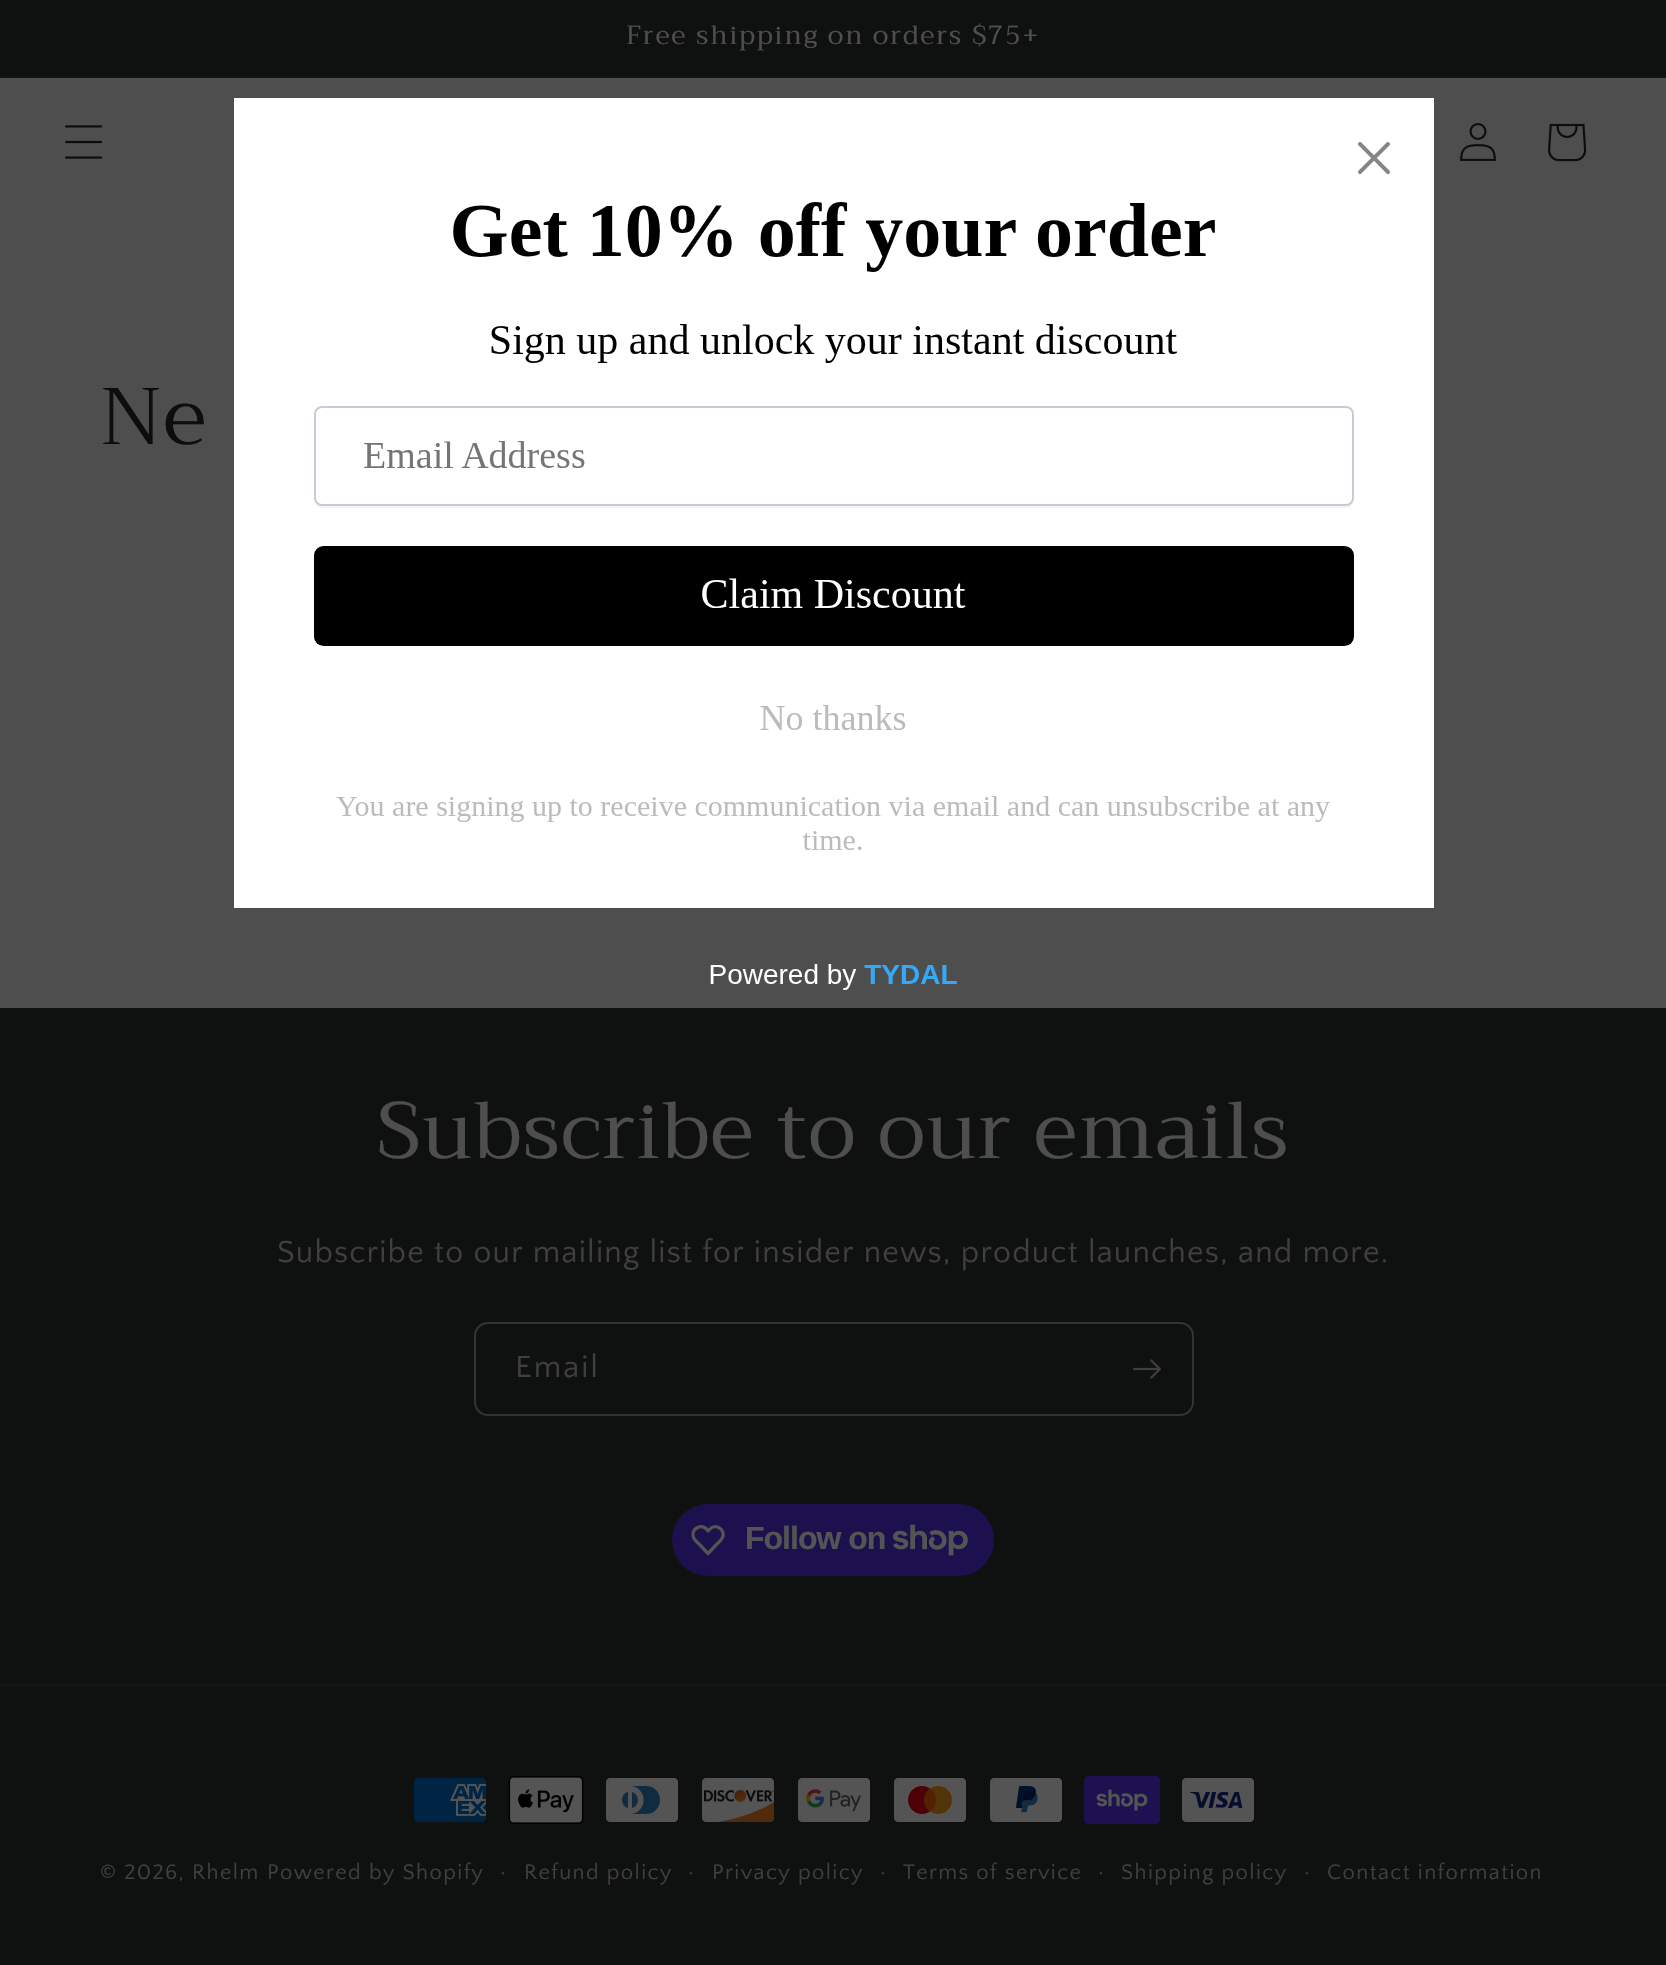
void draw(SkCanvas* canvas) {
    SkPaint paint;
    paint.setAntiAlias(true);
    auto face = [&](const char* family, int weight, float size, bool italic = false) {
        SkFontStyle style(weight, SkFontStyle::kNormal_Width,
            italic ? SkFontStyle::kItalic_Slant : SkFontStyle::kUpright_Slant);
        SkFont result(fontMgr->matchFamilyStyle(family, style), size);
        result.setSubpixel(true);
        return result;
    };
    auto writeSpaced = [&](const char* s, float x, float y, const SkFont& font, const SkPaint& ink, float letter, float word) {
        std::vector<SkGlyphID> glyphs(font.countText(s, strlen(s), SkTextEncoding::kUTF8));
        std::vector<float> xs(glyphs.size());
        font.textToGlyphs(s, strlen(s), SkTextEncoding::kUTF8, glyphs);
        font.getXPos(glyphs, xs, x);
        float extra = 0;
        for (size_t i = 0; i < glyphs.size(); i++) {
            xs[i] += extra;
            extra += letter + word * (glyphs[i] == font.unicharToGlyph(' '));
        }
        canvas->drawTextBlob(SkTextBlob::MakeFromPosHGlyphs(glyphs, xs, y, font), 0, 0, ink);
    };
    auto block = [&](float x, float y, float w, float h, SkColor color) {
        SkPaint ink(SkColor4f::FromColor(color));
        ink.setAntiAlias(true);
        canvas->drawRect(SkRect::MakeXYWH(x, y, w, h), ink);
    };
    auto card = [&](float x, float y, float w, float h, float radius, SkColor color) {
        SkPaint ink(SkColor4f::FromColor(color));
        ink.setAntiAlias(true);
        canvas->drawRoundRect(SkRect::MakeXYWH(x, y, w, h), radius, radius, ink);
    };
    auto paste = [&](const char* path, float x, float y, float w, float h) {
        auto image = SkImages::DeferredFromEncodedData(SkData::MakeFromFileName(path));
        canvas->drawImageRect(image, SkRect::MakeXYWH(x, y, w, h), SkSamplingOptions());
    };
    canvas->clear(SkColorSetRGB(239, 236, 236));
    block(0, 0, 1666, 76, SkColorSetRGB(44, 51, 47));
    block(0, 76, 1666, 2, SkColorSetRGB(60, 66, 62));
    auto kFont1 = face("Trirong", 400, 26);
    paint.setColor(SkColorSetRGB(239, 236, 236));
    writeSpaced("Free shipping on orders $75+", 626, 44, kFont1, paint, 2, 0);
    paste("pic2.png", 65, 125, 38, 34);
    paste("pic3.png", 1460, 123, 36, 38);
    paste("pic4.png", 1548, 123, 39, 39);
    auto kFont2 = face("Trirong", 400, 80);
    paint.setColor(SkColorSetRGB(37, 37, 37));
    writeSpaced("Ne", 100, 444, kFont2, paint, 1.2f, 0);
    block(0, 1008, 1666, 957, SkColorSetRGB(44, 51, 47));
    paint.setColor(SkColorSetRGB(239, 236, 236));
    writeSpaced("Subscribe to our emails", 377, 1158, kFont2, paint, 1.2f, 0);
    auto kFont3 = face("Quattrocento Sans", 400, 32);
    paint.setColor(SkColorSetRGB(190, 190, 189));
    writeSpaced("Subscribe to our mailing list for insider news, product launches, and more.", 277, 1262, kFont3, paint, 1.2f, 0);
    paint.setStyle(SkPaint::kStroke_Style);
    paint.setStrokeWidth(2);
    paint.setColor(SkColorSetRGB(151, 153, 151));
    canvas->drawRoundRect(SkRect::MakeXYWH(475, 1323, 718, 92), 13, 13, paint);
    paint.setStyle(SkPaint::kFill_Style);
    paint.setColor(SkColorSetRGB(190, 190, 189));
    writeSpaced("Email", 515, 1377, kFont3, paint, 2, 0);
    paste("pic5.png", 1133, 1359, 28, 20);
    card(672, 1504, 322, 72, 36, SkColorSetRGB(84, 51, 235));
    paint.setStyle(SkPaint::kStroke_Style);
    paint.setStrokeWidth(3.3f);
    paint.setStrokeJoin(SkPaint::kRound_Join);
    paint.setColor(SK_ColorWHITE);
    canvas->drawPath(SkPathBuilder().moveTo(706.5f, 1529).lineTo(708, 1531).cubicTo(709.5f, 1529.5f, 711, 1527.5f, 713, 1527).cubicTo(719, 1525, 725, 1531.5f, 722.5f, 1537.5f).cubicTo(721.5f, 1540.5f, 718.5f, 1542.5f, 716.5f, 1544.5f).lineTo(708, 1553.5f).lineTo(699.5f, 1544.5f).cubicTo(697.5f, 1542.5f, 694.5f, 1540.5f, 693.5f, 1537.5f).cubicTo(690.5f, 1529.5f, 700.5f, 1523, 706.5f, 1529).close().detach(), paint);
    auto kFont4 = face("Liberation Sans", 700, 32);
    paint.setStyle(SkPaint::kFill_Style);
    writeSpaced("Follow on", 745, 1549, kFont4, paint, -1, 0);
    paste("pic6.png", 893, 1524, 75, 32);
    block(0, 1684, 1666, 2, SkColorSetRGB(60, 66, 62));
    paste("pic7.png", 414, 1778, 72, 44);
    paste("pic8.png", 508, 1776, 76, 48);
    paste("pic9.png", 606, 1778, 72, 44);
    paste("pic10.png", 702, 1778, 73, 44);
    paste("pic11.png", 798, 1778, 72, 44);
    paste("pic12.png", 894, 1778, 72, 44);
    paste("pic13.png", 990, 1778, 72, 44);
    paste("pic14.png", 1084, 1776, 76, 48);
    paste("pic15.png", 1182, 1778, 72, 44);
    auto kFont5 = face("Quattrocento Sans", 400, 22);
    paint.setColor(SkColorSetRGB(190, 190, 189));
    writeSpaced("© 2026, Rhelm", 100, 1879, kFont5, paint, 1.4f, 0);
    writeSpaced("Powered by Shopify", 267, 1879, kFont5, paint, 1.4f, 0);
    auto kFont6 = face("Quattrocento Sans", 400, 24);
    writeSpaced("·", 500, 1879, kFont6, paint, 1.4f, 0);
    writeSpaced("Refund policy", 524, 1879, kFont5, paint, 1.4f, 0);
    writeSpaced("·", 688, 1879, kFont6, paint, 1.4f, 0);
    writeSpaced("Privacy policy", 712, 1879, kFont5, paint, 1.4f, 0);
    writeSpaced("·", 880, 1879, kFont6, paint, 1.4f, 0);
    writeSpaced("Terms of service", 903, 1879, kFont5, paint, 1.4f, 0);
    writeSpaced("·", 1098, 1879, kFont6, paint, 1.4f, 0);
    writeSpaced("Shipping policy", 1121, 1879, kFont5, paint, 1.4f, 0);
    writeSpaced("·", 1304, 1879, kFont6, paint, 1.4f, 0);
    writeSpaced("Contact information", 1327, 1879, kFont5, paint, 1.4f, 0);
    paste("pic1.png", 0, 0, 1666, 1965);
}
